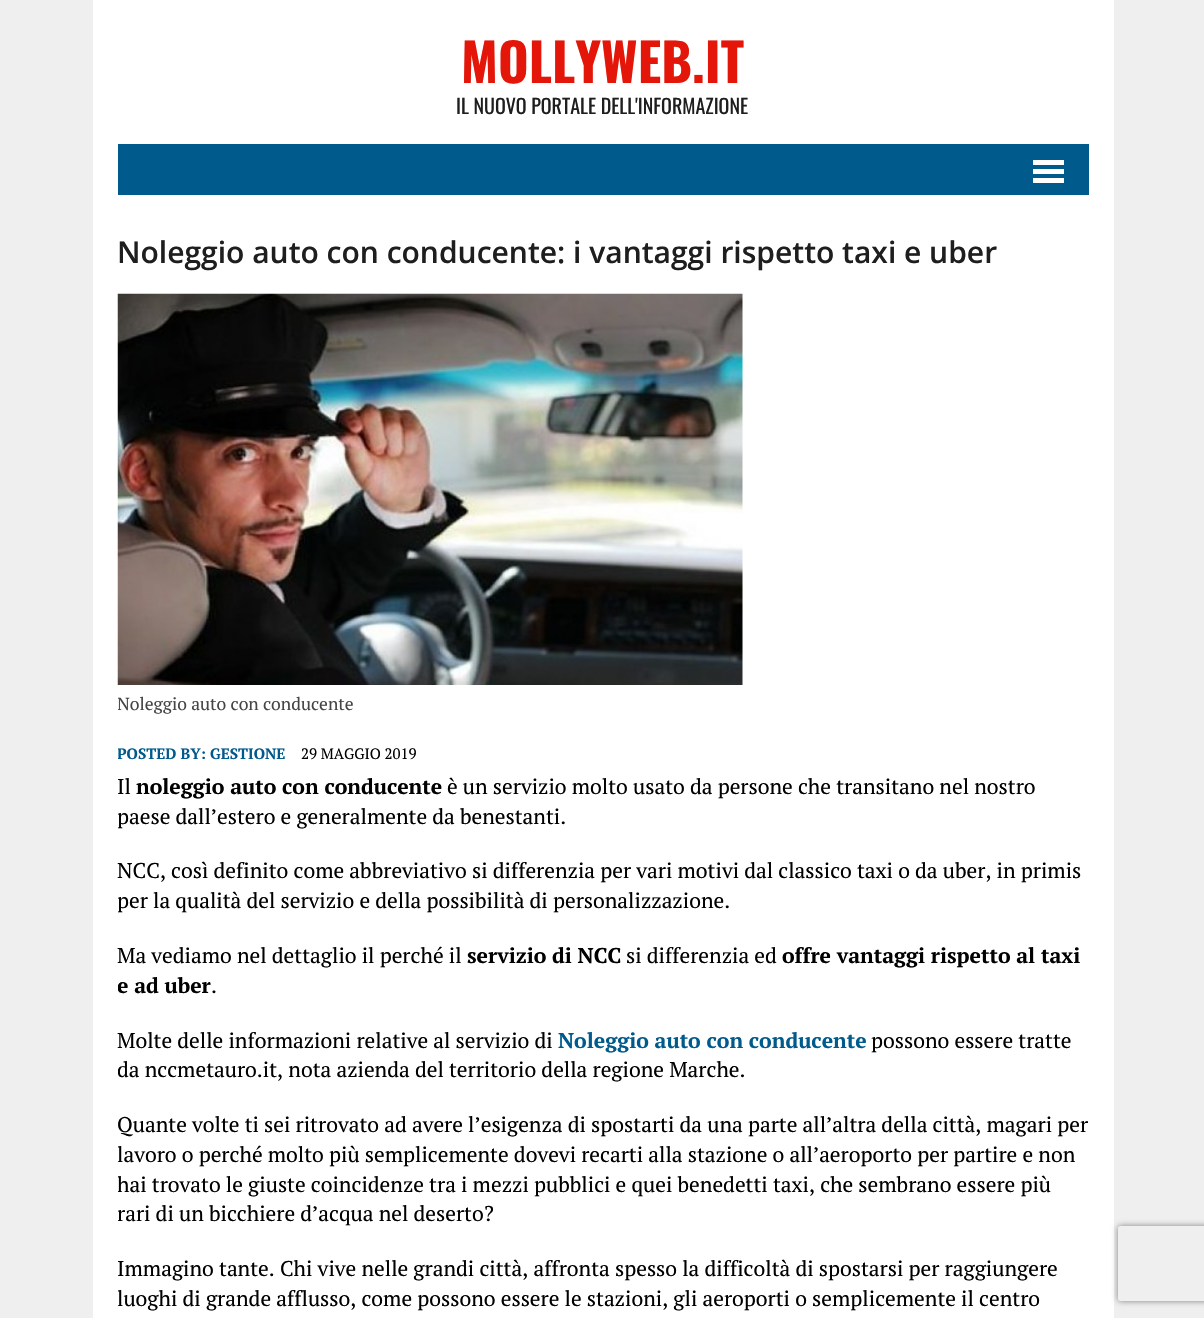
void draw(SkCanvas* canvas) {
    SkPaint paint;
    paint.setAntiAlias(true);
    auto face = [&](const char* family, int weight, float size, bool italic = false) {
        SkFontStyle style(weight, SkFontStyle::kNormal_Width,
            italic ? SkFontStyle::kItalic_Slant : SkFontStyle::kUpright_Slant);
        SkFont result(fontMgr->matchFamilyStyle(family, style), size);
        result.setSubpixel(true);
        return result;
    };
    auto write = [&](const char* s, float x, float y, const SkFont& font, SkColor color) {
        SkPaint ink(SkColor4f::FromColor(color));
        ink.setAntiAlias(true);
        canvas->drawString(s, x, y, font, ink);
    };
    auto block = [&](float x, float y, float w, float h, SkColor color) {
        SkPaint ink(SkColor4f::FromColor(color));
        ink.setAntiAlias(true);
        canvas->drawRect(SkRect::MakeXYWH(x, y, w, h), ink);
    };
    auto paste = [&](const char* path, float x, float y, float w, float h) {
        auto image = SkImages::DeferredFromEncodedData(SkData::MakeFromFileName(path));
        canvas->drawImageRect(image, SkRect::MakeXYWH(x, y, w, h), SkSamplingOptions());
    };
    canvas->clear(SkColorSetRGB(239, 239, 239));
    block(93, 0, 1021, 1318, SK_ColorWHITE);
    auto kFont1 = face("Oswald", 700, 52.5f);
    write("MOLLYWEB.IT", 461, 83, kFont1, SkColorSetRGB(228, 22, 9));
    auto kFont2 = face("Oswald", 400, 20);
    write("IL NUOVO PORTALE DELL'INFORMAZIONE", 456, 114, kFont2, SkColorSetRGB(31, 30, 30));
    block(118, 144, 971, 51, SkColorSetRGB(0, 90, 140));
    block(1033, 160, 31, 5, SK_ColorWHITE);
    block(1033, 169, 31, 5, SK_ColorWHITE);
    block(1033, 178, 31, 5, SK_ColorWHITE);
    auto kFont3 = face("Open Sans", 600, 30);
    write("Noleggio auto con conducente: i vantaggi rispetto taxi e uber", 117, 263, kFont3, SkColorSetRGB(31, 30, 30));
    paste("pic1.png", 117, 293, 626, 392);
    canvas->save();
    canvas->clipRect(SkRect::MakeXYWH(118, 234, 971, 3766));
    auto kFont4 = face("PT Serif", 400, 17.5f);
    write("Noleggio auto con conducente", 117, 710, kFont4, SkColorSetRGB(69, 69, 69));
    auto kFont5 = face("PT Serif", 700, 15);
    write("POSTED BY:", 117, 759, kFont5, SkColorSetRGB(0, 90, 140));
    canvas->restore();
    write("GESTIONE", 210, 759, kFont5, SkColorSetRGB(0, 90, 140));
    auto kFont6 = face("PT Serif", 400, 15);
    write("29 MAGGIO 2019", 301, 759, kFont6, SK_ColorBLACK);
    auto kFont7 = face("PT Serif", 400, 21.25f);
    write("Il", 117, 794, kFont7, SK_ColorBLACK);
    auto kFont8 = face("PT Serif", 700, 21.25f);
    write("noleggio auto con conducente", 136, 794, kFont8, SK_ColorBLACK);
    write("è un servizio molto usato da persone che transitano nel nostro", 447, 794, kFont7, SK_ColorBLACK);
    canvas->save();
    canvas->clipRect(SkRect::MakeXYWH(118, 234, 971, 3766));
    write("paese dall’estero e generalmente da benestanti.", 117, 824, kFont7, SK_ColorBLACK);
    canvas->restore();
    write("NCC, così definito come abbreviativo si differenzia per vari motivi dal classico taxi o da uber, in primis", 117, 878, kFont7, SK_ColorBLACK);
    canvas->save();
    canvas->clipRect(SkRect::MakeXYWH(118, 234, 971, 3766));
    write("per la qualità del servizio e della possibilità di personalizzazione.", 117, 908, kFont7, SK_ColorBLACK);
    canvas->restore();
    write("Ma vediamo nel dettaglio il perché il", 117, 963, kFont7, SK_ColorBLACK);
    write("servizio di NCC", 467, 963, kFont8, SK_ColorBLACK);
    write("si differenzia ed", 626, 963, kFont7, SK_ColorBLACK);
    write("offre vantaggi rispetto al taxi", 782, 963, kFont8, SK_ColorBLACK);
    canvas->save();
    canvas->clipRect(SkRect::MakeXYWH(118, 234, 971, 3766));
    write("e ad uber", 117, 993, kFont8, SK_ColorBLACK);
    canvas->restore();
    write(".", 211, 993, kFont7, SK_ColorBLACK);
    write("Molte delle informazioni relative al servizio di", 117, 1048, kFont7, SK_ColorBLACK);
    write("Noleggio auto con conducente", 558, 1048, kFont8, SkColorSetRGB(0, 90, 140));
    write("possono essere tratte", 871, 1048, kFont7, SK_ColorBLACK);
    canvas->save();
    canvas->clipRect(SkRect::MakeXYWH(118, 234, 971, 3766));
    write("da nccmetauro.it, nota azienda del territorio della regione Marche.", 117, 1077, kFont7, SK_ColorBLACK);
    canvas->restore();
    write("Quante volte ti sei ritrovato ad avere l’esigenza di spostarti da una parte all’altra della città, magari per", 117, 1132, kFont7, SK_ColorBLACK);
    canvas->save();
    canvas->clipRect(SkRect::MakeXYWH(118, 234, 971, 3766));
    write("lavoro o perché molto più semplicemente dovevi recarti alla stazione o all’aeroporto per partire e non", 117, 1162, kFont7, SK_ColorBLACK);
    write("hai trovato le giuste coincidenze tra i mezzi pubblici e quei benedetti taxi, che sembrano essere più", 117, 1192, kFont7, SK_ColorBLACK);
    write("rari di un bicchiere d’acqua nel deserto?", 117, 1221, kFont7, SK_ColorBLACK);
    canvas->restore();
    write("Immagino tante. Chi vive nelle grandi città, affronta spesso la difficoltà di spostarsi per raggiungere", 117, 1276, kFont7, SK_ColorBLACK);
    canvas->save();
    canvas->clipRect(SkRect::MakeXYWH(118, 234, 971, 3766));
    write("luoghi di grande afflusso, come possono essere le stazioni, gli aeroporti o semplicemente il centro", 117, 1306, kFont7, SK_ColorBLACK);
    canvas->restore();
    canvas->save();
    canvas->clipPath(SkPathBuilder(SkPathFillType::kEvenOdd).moveTo(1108, 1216).lineTo(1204, 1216).lineTo(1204, 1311).lineTo(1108, 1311).close().moveTo(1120.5f, 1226).lineTo(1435.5f, 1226).cubicTo(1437, 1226, 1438, 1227, 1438, 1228.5f).lineTo(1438, 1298.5f).cubicTo(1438, 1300, 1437, 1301, 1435.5f, 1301).lineTo(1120.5f, 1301).cubicTo(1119, 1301, 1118, 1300, 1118, 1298.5f).lineTo(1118, 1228.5f).cubicTo(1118, 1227, 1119, 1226, 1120.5f, 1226).close().detach(), true);
    paint.setColor(SkColorSetRGB(128, 128, 128));
    paint.setMaskFilter(SkMaskFilter::MakeBlur(kNormal_SkBlurStyle, 3));
    canvas->drawRoundRect(SkRect::MakeXYWH(1118, 1226, 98, 75), 2.5f, 2.5f, paint);
    paint.setMaskFilter(nullptr);
    canvas->restore();
}
